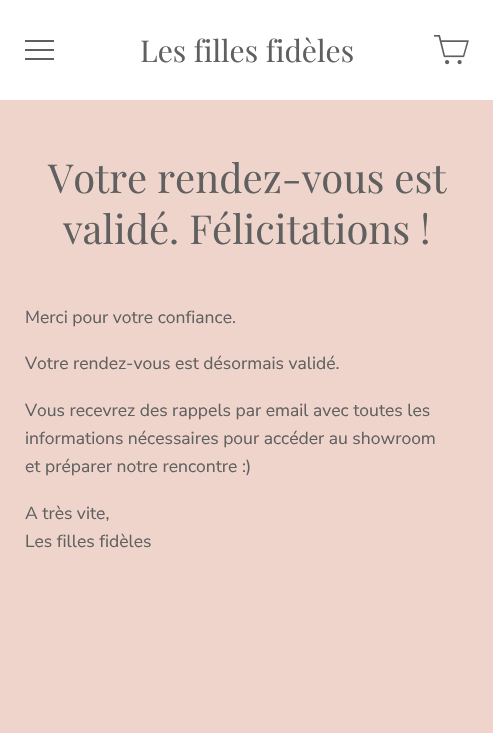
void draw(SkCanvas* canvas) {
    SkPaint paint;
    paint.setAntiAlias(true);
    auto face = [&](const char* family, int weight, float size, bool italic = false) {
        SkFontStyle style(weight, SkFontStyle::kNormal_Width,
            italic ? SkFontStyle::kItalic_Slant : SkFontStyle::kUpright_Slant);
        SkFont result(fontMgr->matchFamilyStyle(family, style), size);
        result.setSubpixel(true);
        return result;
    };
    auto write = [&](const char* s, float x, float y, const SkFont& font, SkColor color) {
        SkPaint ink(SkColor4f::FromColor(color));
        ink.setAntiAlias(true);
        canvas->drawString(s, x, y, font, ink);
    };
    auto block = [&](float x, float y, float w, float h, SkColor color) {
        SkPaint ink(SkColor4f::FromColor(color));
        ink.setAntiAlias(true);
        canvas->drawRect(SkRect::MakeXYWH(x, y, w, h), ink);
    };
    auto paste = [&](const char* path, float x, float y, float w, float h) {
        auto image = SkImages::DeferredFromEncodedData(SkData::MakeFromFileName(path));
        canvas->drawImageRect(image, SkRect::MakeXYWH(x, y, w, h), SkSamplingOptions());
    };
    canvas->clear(SkColorSetRGB(238, 212, 203));
    block(0, 0, 493, 100, SK_ColorWHITE);
    block(25, 40, 29, 2, SkColorSetRGB(96, 96, 96));
    block(25, 49, 29, 2, SkColorSetRGB(96, 96, 96));
    block(25, 58, 29, 2, SkColorSetRGB(96, 96, 96));
    auto kFont1 = face("Playfair Display", 400, 30);
    write("Les filles fidèles", 140, 62, kFont1, SkColorSetRGB(96, 96, 96));
    paste("pic1.png", 434, 35, 35, 30);
    auto kFont2 = face("Playfair Display", 400, 40);
    write("Votre rendez-vous est", 48, 193, kFont2, SkColorSetRGB(96, 96, 96));
    write("validé. Félicitations !", 63, 244, kFont2, SkColorSetRGB(96, 96, 96));
    auto kFont3 = face("Nunito Sans", 400, 17.5f);
    write("Merci pour votre confiance.", 25, 323, kFont3, SkColorSetRGB(96, 96, 96));
    write("Votre rendez-vous est désormais validé.", 25, 369, kFont3, SkColorSetRGB(96, 96, 96));
    write("Vous recevrez des rappels par email avec toutes les", 25, 416, kFont3, SkColorSetRGB(96, 96, 96));
    write("informations nécessaires pour accéder au showroom", 25, 444, kFont3, SkColorSetRGB(96, 96, 96));
    write("et préparer notre rencontre :)", 25, 472, kFont3, SkColorSetRGB(96, 96, 96));
    write("A très vite,", 25, 519, kFont3, SkColorSetRGB(96, 96, 96));
    write("Les filles fidèles", 25, 547, kFont3, SkColorSetRGB(96, 96, 96));
}
